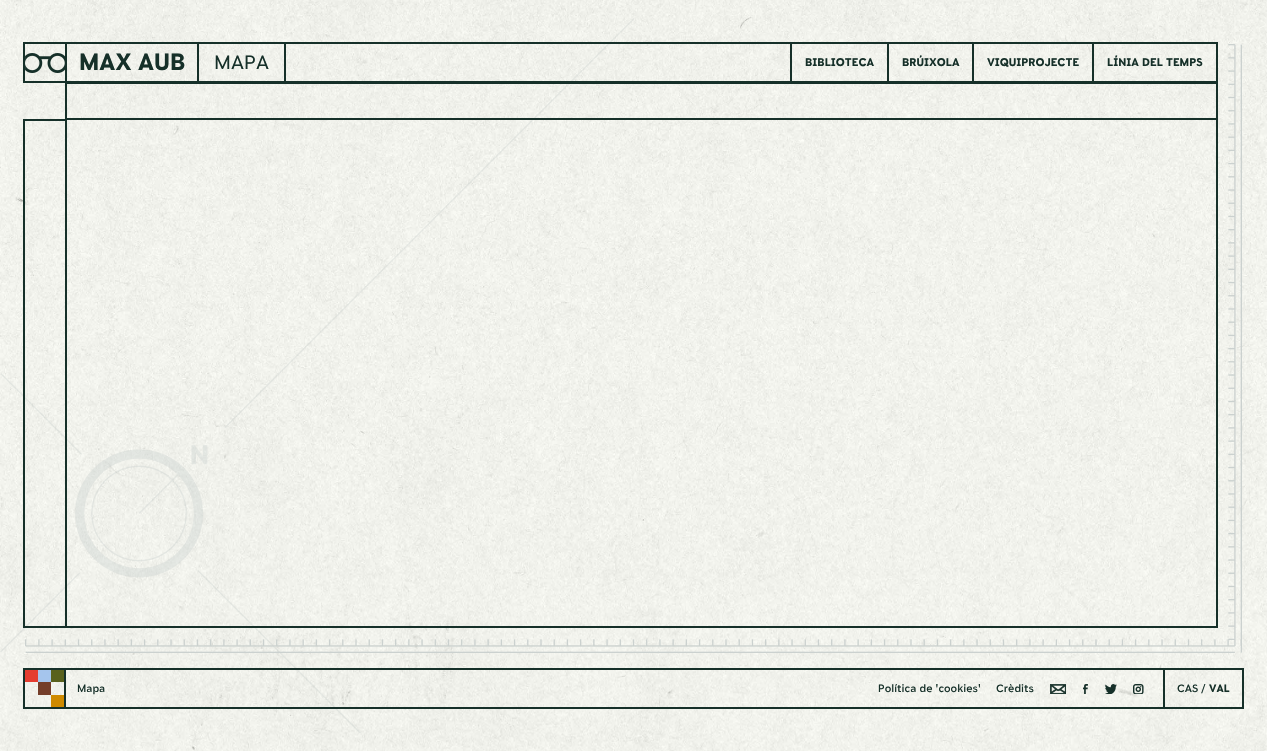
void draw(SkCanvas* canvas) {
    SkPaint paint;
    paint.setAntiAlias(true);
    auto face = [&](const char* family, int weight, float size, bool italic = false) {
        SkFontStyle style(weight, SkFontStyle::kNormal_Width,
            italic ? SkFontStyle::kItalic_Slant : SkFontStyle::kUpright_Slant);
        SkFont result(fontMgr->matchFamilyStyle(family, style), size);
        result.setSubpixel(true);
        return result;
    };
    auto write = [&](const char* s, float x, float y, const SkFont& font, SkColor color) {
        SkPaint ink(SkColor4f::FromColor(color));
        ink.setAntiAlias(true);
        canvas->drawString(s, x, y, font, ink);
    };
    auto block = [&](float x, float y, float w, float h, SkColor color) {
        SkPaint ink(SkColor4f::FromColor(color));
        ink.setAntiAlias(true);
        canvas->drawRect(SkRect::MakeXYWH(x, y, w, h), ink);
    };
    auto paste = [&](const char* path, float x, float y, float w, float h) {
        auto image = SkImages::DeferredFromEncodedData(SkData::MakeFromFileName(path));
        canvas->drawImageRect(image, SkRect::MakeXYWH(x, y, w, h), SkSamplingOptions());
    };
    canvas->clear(SK_ColorWHITE);
    paste("pic1.png", 0, 0, 1267, 751);
    paste("pic2.png", 0, 18, 634, 715);
    paste("pic3.png", 25, 44, 1217, 609);
    block(790, 44, 2, 37, SkColorSetRGB(22, 48, 41));
    block(887, 44, 2, 37, SkColorSetRGB(22, 48, 41));
    block(972, 44, 2, 37, SkColorSetRGB(22, 48, 41));
    block(1092, 44, 2, 37, SkColorSetRGB(22, 48, 41));
    paint.setStyle(SkPaint::kStroke_Style);
    paint.setStrokeWidth(2);
    paint.setColor(SkColorSetRGB(22, 48, 41));
    canvas->drawRect(SkRect::MakeXYWH(66, 83, 1151, 544), paint);
    canvas->drawRect(SkRect::MakeXYWH(24, 43, 1193, 39), paint);
    block(65, 44, 2, 37, SkColorSetRGB(22, 48, 41));
    paste("pic4.png", 25, 53, 40, 20);
    block(197, 44, 2, 37, SkColorSetRGB(22, 48, 41));
    auto kFont1 = face("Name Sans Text", 700, 23.25f);
    write("MAX AUB", 79, 70, kFont1, SkColorSetRGB(22, 48, 41));
    block(284, 44, 2, 37, SkColorSetRGB(22, 48, 41));
    auto kFont2 = face("Name Sans Text", 400, 19);
    write("MAPA", 214, 69, kFont2, SkColorSetRGB(22, 48, 41));
    auto kFont3 = face("Name Sans Text", 700, 11);
    write("BIBLIOTECA", 805, 66, kFont3, SkColorSetRGB(22, 48, 41));
    write("BRÚIXOLA", 902, 66, kFont3, SkColorSetRGB(22, 48, 41));
    write("VIQUIPROJECTE", 987, 66, kFont3, SkColorSetRGB(22, 48, 41));
    write("LÍNIA DEL TEMPS", 1107, 66, kFont3, SkColorSetRGB(22, 48, 41));
    canvas->drawRect(SkRect::MakeXYWH(24, 120, 42, 507), paint);
    block(67, 118, 1149, 2, SkColorSetRGB(22, 48, 41));
    block(1163, 670, 2, 37, SkColorSetRGB(22, 48, 41));
    canvas->drawRect(SkRect::MakeXYWH(24, 669, 1219, 39), paint);
    block(25, 670, 13, 12, SkColorSetRGB(228, 61, 48));
    block(51, 670, 13, 12, SkColorSetRGB(89, 97, 29));
    block(51, 695, 13, 12, SkColorSetRGB(207, 138, 0));
    block(38, 682, 13, 13, SkColorSetRGB(116, 62, 42));
    block(38, 670, 13, 12, SkColorSetRGB(165, 197, 237));
    block(64, 670, 2, 37, SkColorSetRGB(22, 48, 41));
    auto kFont4 = face("Name Sans Text", 500, 10.5f);
    write("Mapa", 77, 692, kFont4, SkColorSetRGB(22, 48, 41));
    write("Política de 'cookies'", 878, 692, kFont4, SkColorSetRGB(22, 48, 41));
    write("Crèdits", 996, 692, kFont4, SkColorSetRGB(22, 48, 41));
    paste("pic5.png", 1050, 684, 16, 10);
    paste("pic6.png", 1083, 684, 5, 10);
    paste("pic7.png", 1105, 684, 12, 10);
    paste("pic8.png", 1133, 684, 11, 10);
    write("CAS", 1177, 692, kFont4, SkColorSetRGB(22, 48, 41));
    auto kFont5 = face("Name Sans Text", 400, 10.5f);
    write("/", 1201, 692, kFont5, SkColorSetRGB(22, 48, 41));
    auto kFont6 = face("Name Sans Text", 700, 10.5f);
    write("VAL", 1209, 692, kFont6, SkColorSetRGB(22, 48, 41));
}
